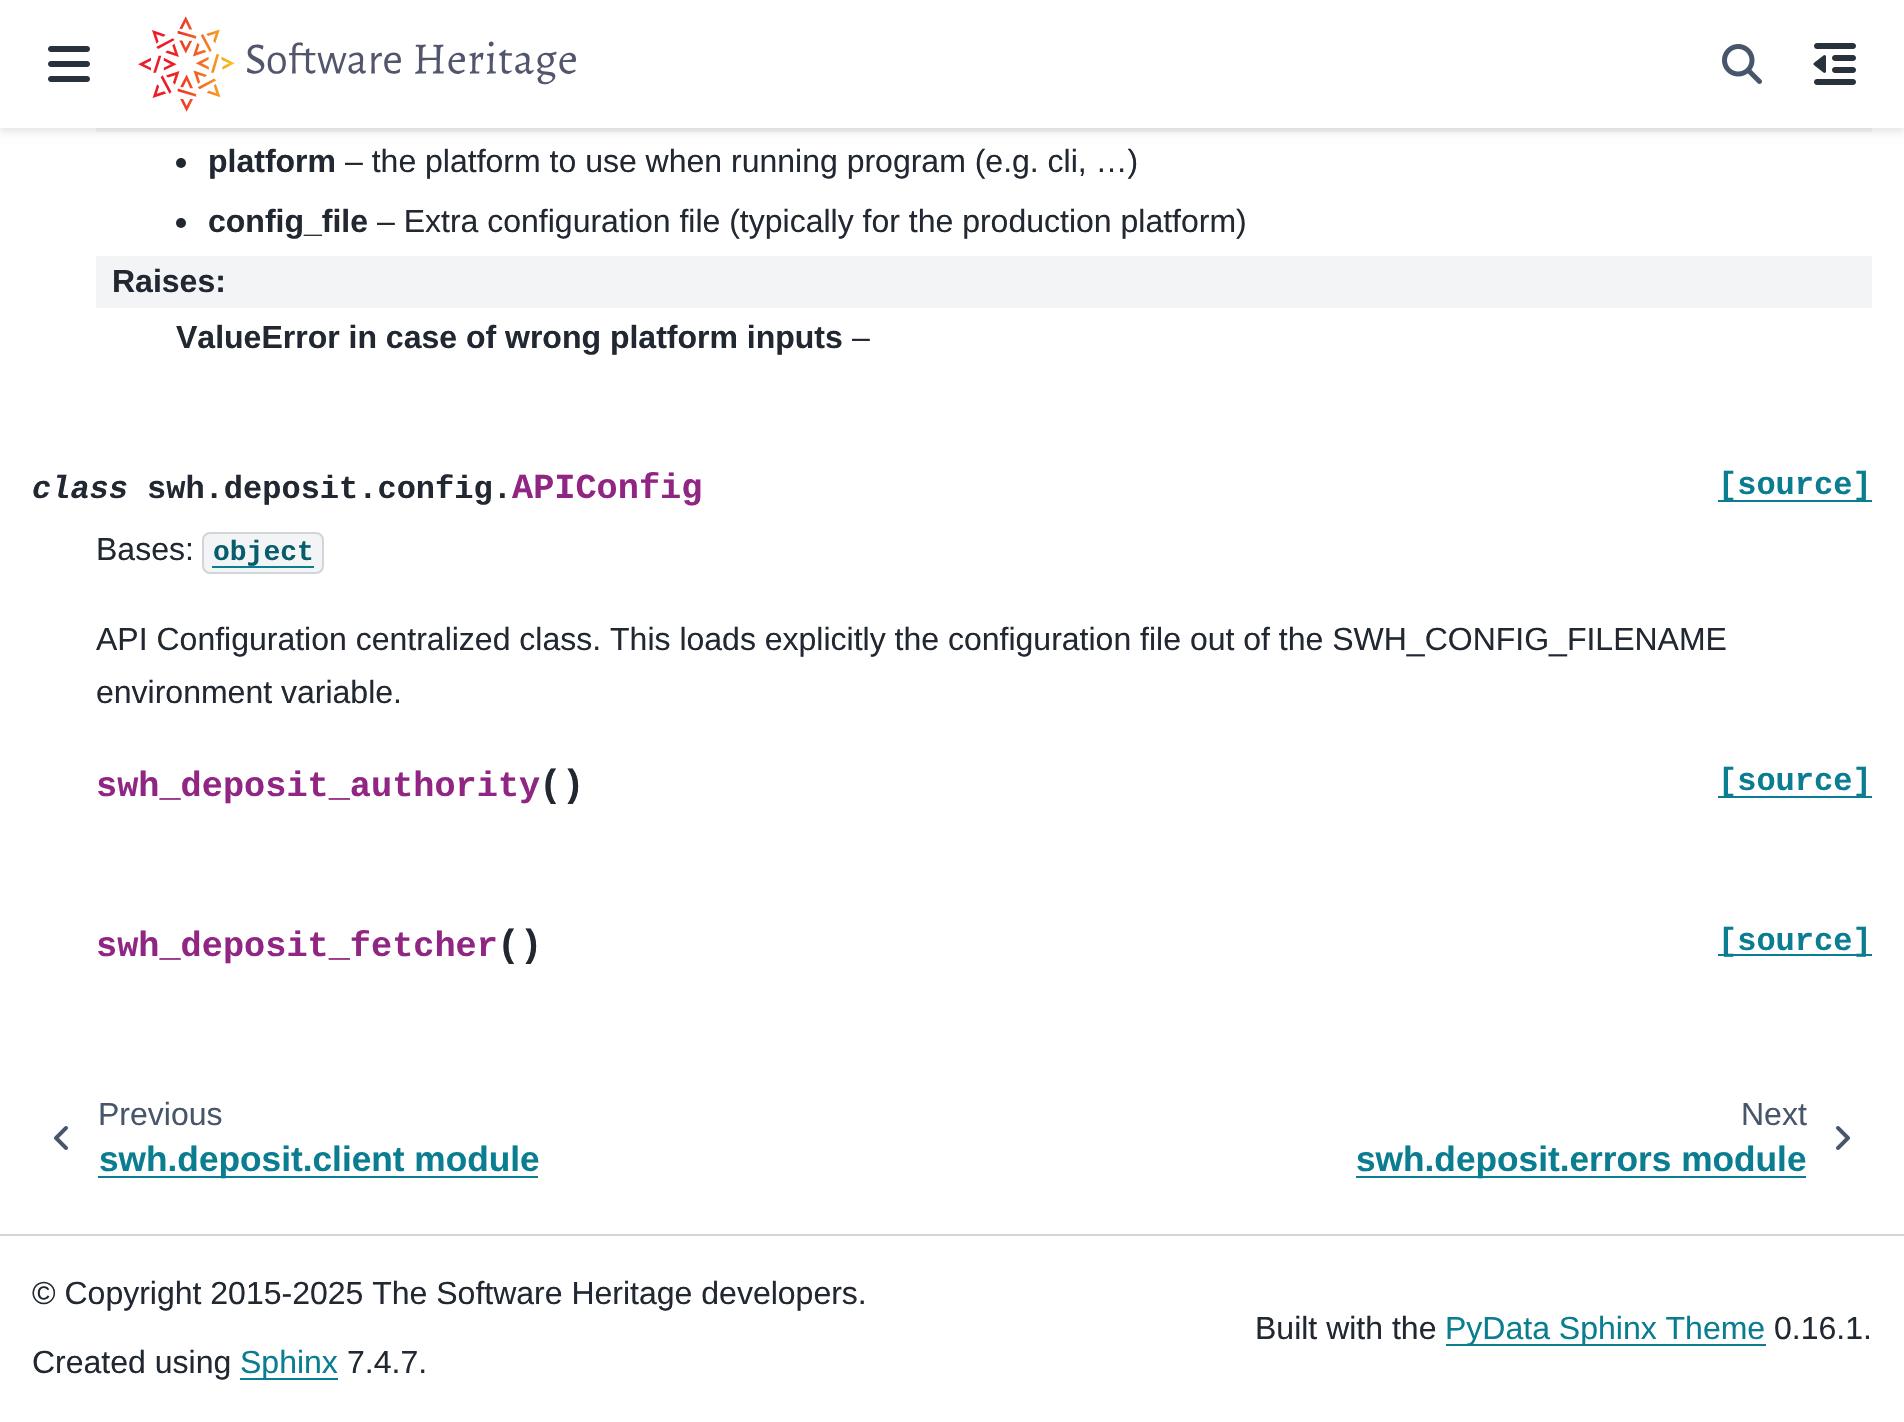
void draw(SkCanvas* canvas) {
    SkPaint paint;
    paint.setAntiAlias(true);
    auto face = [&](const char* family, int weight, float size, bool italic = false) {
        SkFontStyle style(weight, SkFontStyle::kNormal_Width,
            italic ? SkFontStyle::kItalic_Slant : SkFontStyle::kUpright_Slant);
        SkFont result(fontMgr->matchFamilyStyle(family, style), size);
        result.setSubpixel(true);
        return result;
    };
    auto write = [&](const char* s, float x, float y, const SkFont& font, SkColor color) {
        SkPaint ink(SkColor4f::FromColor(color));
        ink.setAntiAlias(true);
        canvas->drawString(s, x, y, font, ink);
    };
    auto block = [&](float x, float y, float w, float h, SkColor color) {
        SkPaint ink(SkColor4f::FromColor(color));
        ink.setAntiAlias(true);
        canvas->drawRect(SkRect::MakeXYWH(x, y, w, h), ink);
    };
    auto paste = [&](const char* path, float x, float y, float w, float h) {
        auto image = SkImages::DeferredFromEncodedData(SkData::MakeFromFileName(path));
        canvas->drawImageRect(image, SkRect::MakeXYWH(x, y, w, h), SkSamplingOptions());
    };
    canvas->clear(SK_ColorWHITE);
    block(96, 128, 1776, 4, SkColorSetRGB(243, 244, 245));
    paint.setColor(SkColorSetARGB(26, 0, 0, 0));
    paint.setMaskFilter(SkMaskFilter::MakeBlur(kNormal_SkBlurStyle, 4));
    canvas->drawRect(SkRect::MakeXYWH(0, 4, 1904, 128), paint);
    paint.setMaskFilter(nullptr);
    block(0, 0, 1904, 128, SK_ColorWHITE);
    paste("pic1.png", 48, 46, 42, 36);
    paste("pic2.png", 138, 16, 438, 96);
    paste("pic3.png", 1722, 44, 40, 40);
    paste("pic4.png", 1813, 43, 43, 42);
    paint.setColor(SkColorSetRGB(34, 40, 50));
    canvas->drawCircle(181, 163, 5, paint);
    auto kFont1 = face("Liberation Sans", 700, 32);
    write("platform", 208, 172, kFont1, SkColorSetRGB(34, 40, 50));
    auto kFont2 = face("Liberation Sans", 400, 32);
    write("– the platform to use when running program (e.g. cli, …)", 345, 172, kFont2, SkColorSetRGB(34, 40, 50));
    canvas->drawCircle(181, 223, 5, paint);
    write("config_file", 208, 232, kFont1, SkColorSetRGB(34, 40, 50));
    write("– Extra configuration file (typically for the production platform)", 377, 232, kFont2, SkColorSetRGB(34, 40, 50));
    block(96, 256, 1776, 52, SkColorSetRGB(243, 244, 245));
    write("Raises:", 112, 292, kFont1, SkColorSetRGB(34, 40, 50));
    write("ValueError in case of wrong platform inputs", 176, 348, kFont1, SkColorSetRGB(34, 40, 50));
    write("–", 852, 348, kFont2, SkColorSetRGB(34, 40, 50));
    auto kFont3 = face("Liberation Mono", 700, 32, true);
    write("class", 32, 498, kFont3, SkColorSetRGB(34, 40, 50));
    auto kFont4 = face("Liberation Mono", 700, 32);
    write("swh.deposit.config.", 147, 498, kFont4, SkColorSetRGB(34, 40, 50));
    auto kFont5 = face("Liberation Mono", 700, 35.25f);
    write("APIConfig", 512, 498, kFont5, SkColorSetRGB(145, 37, 131));
    block(1718, 500, 154, 2, SkColorSetRGB(10, 125, 145));
    write("[source]", 1718, 494, kFont4, SkColorSetRGB(10, 125, 145));
    write("Bases:", 96, 560, kFont2, SkColorSetRGB(34, 40, 50));
    paint.setColor(SkColorSetRGB(243, 244, 245));
    canvas->drawRoundRect(SkRect::MakeXYWH(203, 533, 120, 40), 7, 7, paint);
    paint.setStyle(SkPaint::kStroke_Style);
    paint.setStrokeWidth(2);
    paint.setColor(SkColorSetRGB(209, 213, 218));
    canvas->drawRoundRect(SkRect::MakeXYWH(203, 533, 120, 40), 7, 7, paint);
    auto kFont6 = face("Liberation Mono", 700, 28);
    write("object", 213, 560, kFont6, SkColorSetRGB(8, 93, 108));
    block(212, 566, 102, 2, SkColorSetRGB(10, 125, 145));
    write("API Configuration centralized class. This loads explicitly the configuration file out of the SWH_CONFIG_FILENAME", 96, 650, kFont2, SkColorSetRGB(34, 40, 50));
    write("environment variable.", 96, 703, kFont2, SkColorSetRGB(34, 40, 50));
    write("swh_deposit_authority", 96, 796, kFont5, SkColorSetRGB(145, 37, 131));
    auto kFont7 = face("Liberation Mono", 700, 38);
    write("()", 539, 796, kFont7, SkColorSetRGB(34, 40, 50));
    block(1718, 796, 154, 2, SkColorSetRGB(10, 125, 145));
    write("[source]", 1718, 790, kFont4, SkColorSetRGB(10, 125, 145));
    write("swh_deposit_fetcher", 96, 956, kFont5, SkColorSetRGB(145, 37, 131));
    write("()", 497, 956, kFont7, SkColorSetRGB(34, 40, 50));
    block(1718, 954, 154, 2, SkColorSetRGB(10, 125, 145));
    write("[source]", 1718, 950, kFont4, SkColorSetRGB(10, 125, 145));
    paste("pic5.png", 54, 1126, 14, 24);
    write("Previous", 98, 1125, kFont2, SkColorSetRGB(72, 86, 107));
    block(98, 1176, 440, 2, SkColorSetRGB(10, 125, 145));
    auto kFont8 = face("Liberation Sans", 700, 35.25f);
    write("swh.deposit.client module", 99, 1171, kFont8, SkColorSetRGB(10, 125, 145));
    write("Next", 1741, 1125, kFont2, SkColorSetRGB(72, 86, 107));
    block(1356, 1176, 450, 2, SkColorSetRGB(10, 125, 145));
    write("swh.deposit.errors module", 1356, 1171, kFont8, SkColorSetRGB(10, 125, 145));
    paste("pic6.png", 1836, 1126, 14, 24);
    block(0, 1234, 1904, 2, SkColorSetRGB(209, 213, 218));
    write("© Copyright 2015-2025 The Software Heritage developers.", 32, 1304, kFont2, SkColorSetRGB(34, 40, 50));
    write("Created using", 32, 1373, kFont2, SkColorSetRGB(34, 40, 50));
    block(240, 1378, 98, 2, SkColorSetRGB(10, 125, 145));
    write("Sphinx", 240, 1373, kFont2, SkColorSetRGB(10, 125, 145));
    write("7.4.7.", 347, 1373, kFont2, SkColorSetRGB(34, 40, 50));
    write("Built with the", 1255, 1339, kFont2, SkColorSetRGB(34, 40, 50));
    block(1446, 1344, 320, 2, SkColorSetRGB(10, 125, 145));
    write("PyData Sphinx Theme", 1445, 1339, kFont2, SkColorSetRGB(10, 125, 145));
    write("0.16.1.", 1774, 1339, kFont2, SkColorSetRGB(34, 40, 50));
}
